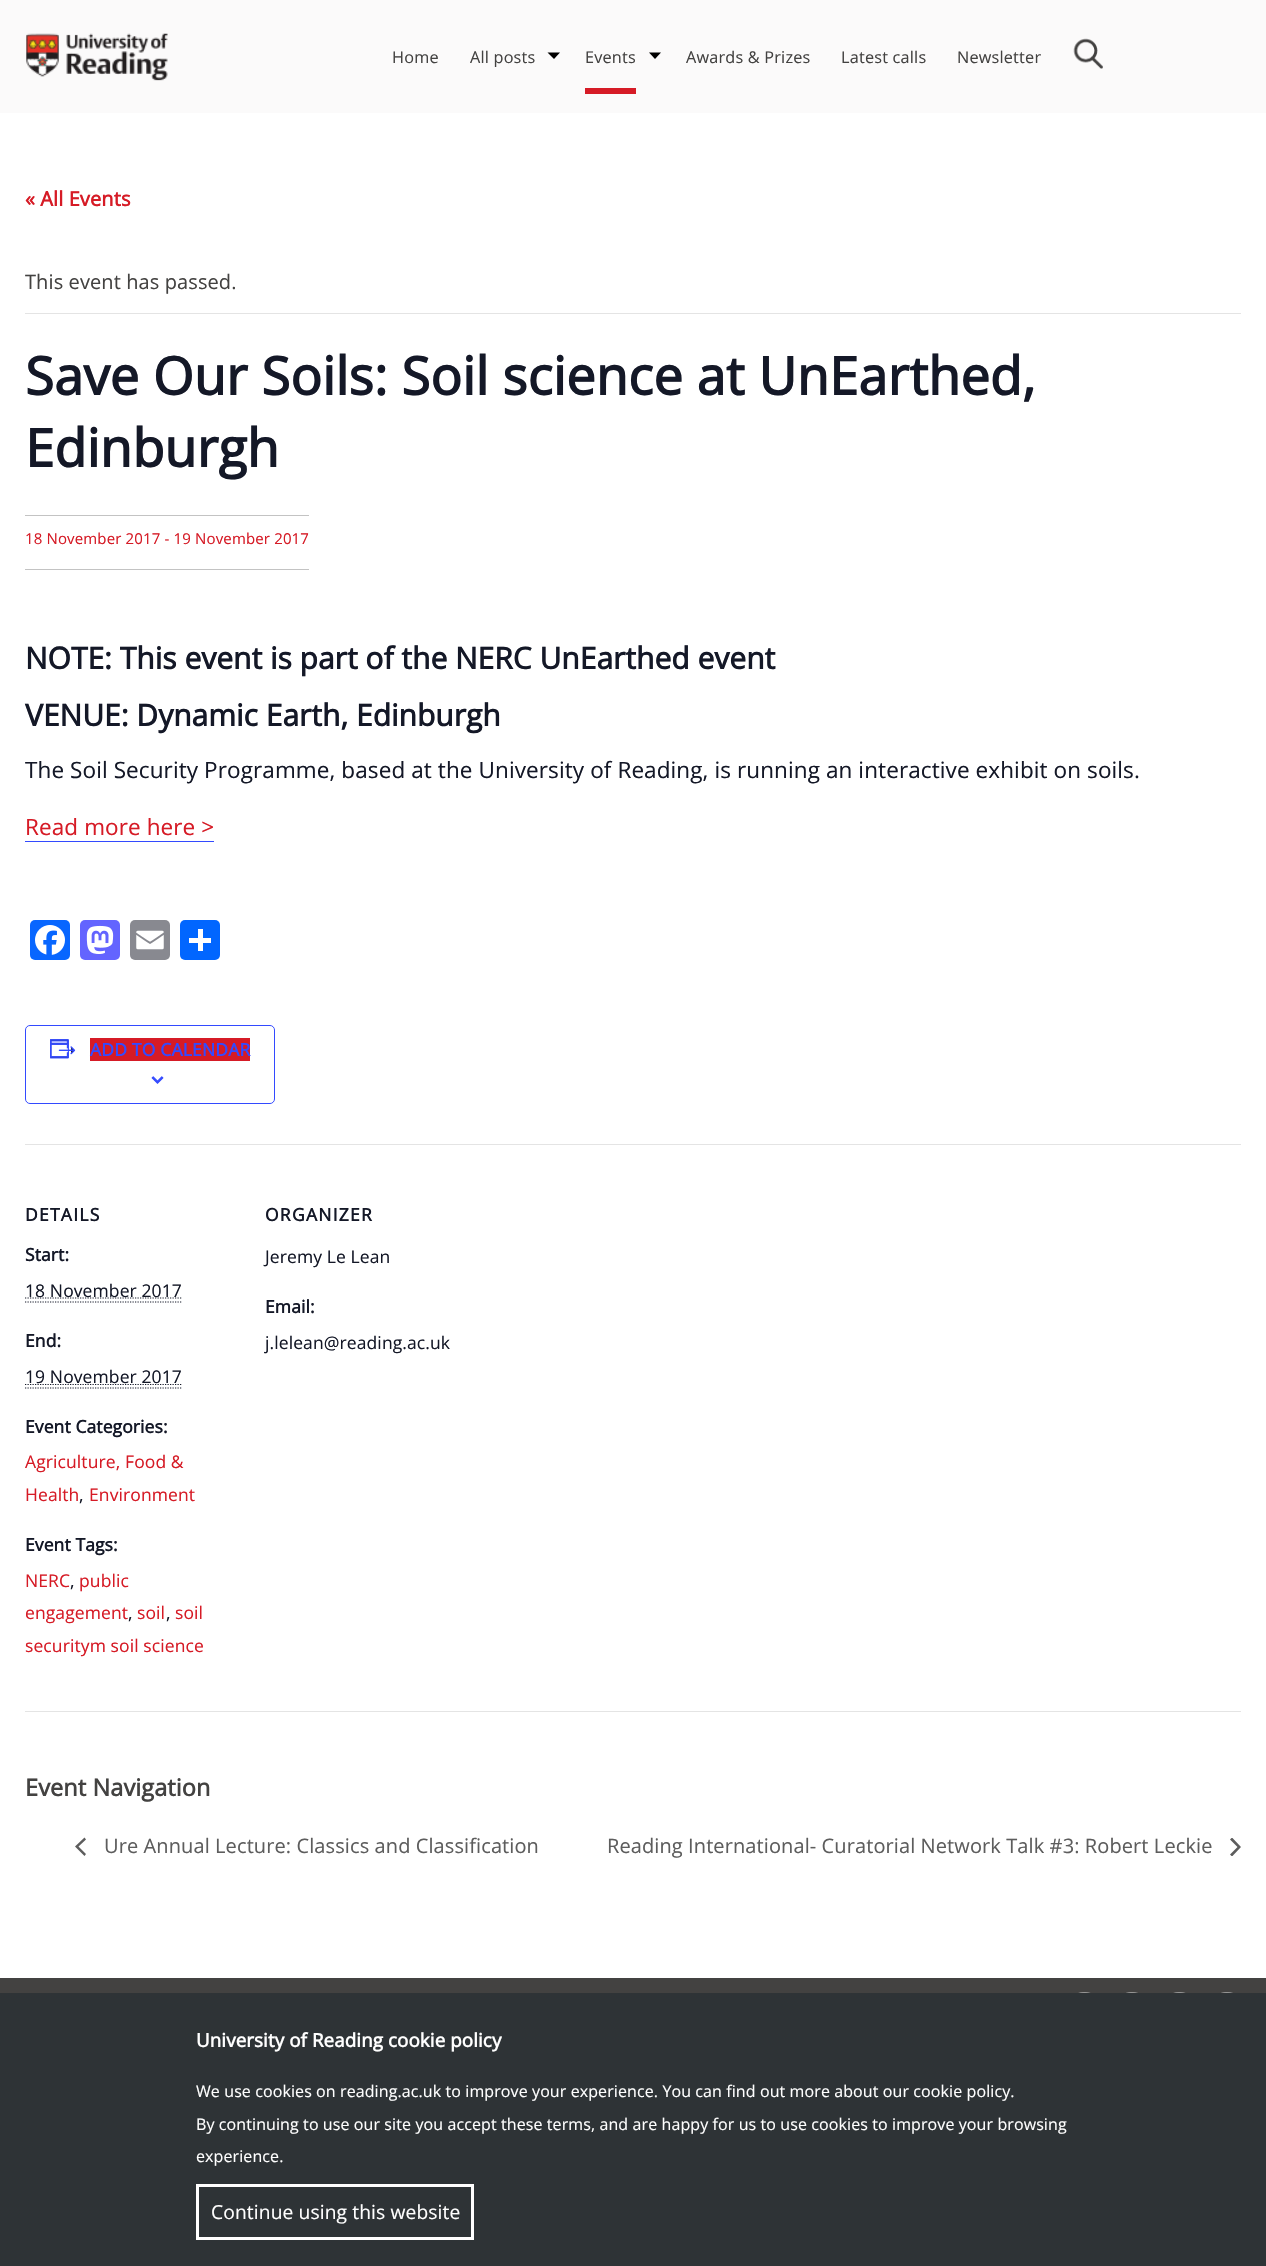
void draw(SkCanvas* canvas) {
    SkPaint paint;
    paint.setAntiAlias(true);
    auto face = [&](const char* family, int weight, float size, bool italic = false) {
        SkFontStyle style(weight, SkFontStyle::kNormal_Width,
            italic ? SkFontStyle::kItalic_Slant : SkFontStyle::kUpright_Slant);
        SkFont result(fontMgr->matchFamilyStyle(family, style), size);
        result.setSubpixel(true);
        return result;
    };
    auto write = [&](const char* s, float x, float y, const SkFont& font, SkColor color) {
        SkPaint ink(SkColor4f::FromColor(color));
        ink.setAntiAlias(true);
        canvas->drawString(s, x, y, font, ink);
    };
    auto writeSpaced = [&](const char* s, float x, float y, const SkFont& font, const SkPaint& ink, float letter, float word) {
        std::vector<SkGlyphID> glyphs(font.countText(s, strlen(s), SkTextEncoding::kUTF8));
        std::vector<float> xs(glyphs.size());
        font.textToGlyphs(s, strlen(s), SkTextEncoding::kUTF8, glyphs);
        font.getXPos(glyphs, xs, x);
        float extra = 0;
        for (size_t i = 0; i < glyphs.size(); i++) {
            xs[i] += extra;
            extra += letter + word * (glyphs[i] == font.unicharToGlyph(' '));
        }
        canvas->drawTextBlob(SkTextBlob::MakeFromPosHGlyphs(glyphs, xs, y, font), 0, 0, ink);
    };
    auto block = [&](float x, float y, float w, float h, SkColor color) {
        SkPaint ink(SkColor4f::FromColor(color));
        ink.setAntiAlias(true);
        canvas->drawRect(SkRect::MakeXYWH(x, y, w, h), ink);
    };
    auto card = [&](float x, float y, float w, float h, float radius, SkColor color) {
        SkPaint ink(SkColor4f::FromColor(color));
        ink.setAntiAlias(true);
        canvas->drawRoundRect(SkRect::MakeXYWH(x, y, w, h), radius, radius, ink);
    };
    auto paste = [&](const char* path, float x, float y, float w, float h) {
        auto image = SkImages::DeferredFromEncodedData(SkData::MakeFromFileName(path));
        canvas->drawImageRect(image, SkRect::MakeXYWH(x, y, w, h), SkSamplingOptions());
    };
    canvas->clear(SK_ColorWHITE);
    block(0, 0, 1266, 113, SkColorSetRGB(251, 250, 250));
    paste("pic1.png", 26, 33, 142, 48);
    auto kFont1 = face("Open Sans", 400, 16.25f);
    paint.setColor(SkColorSetRGB(67, 66, 65));
    writeSpaced("Home", 392, 63, kFont1, paint, 0.2f, 0);
    writeSpaced("All posts", 470, 63, kFont1, paint, 0.2f, 0);
    paint.setColor(SK_ColorBLACK);
    canvas->drawPath(SkPathBuilder().moveTo(547.5f, 52.5f).lineTo(560, 52.5f).lineTo(554, 59).close().detach(), paint);
    paint.setColor(SkColorSetRGB(67, 66, 65));
    writeSpaced("Events", 585, 63, kFont1, paint, 0.2f, 0);
    paint.setColor(SK_ColorBLACK);
    canvas->drawPath(SkPathBuilder().moveTo(649, 52.5f).lineTo(661, 52.5f).lineTo(655, 59).close().detach(), paint);
    block(585, 88, 51, 6, SkColorSetRGB(214, 27, 38));
    paint.setColor(SkColorSetRGB(67, 66, 65));
    writeSpaced("Awards & Prizes", 686, 63, kFont1, paint, 0.2f, 0);
    writeSpaced("Latest calls", 841, 63, kFont1, paint, 0.2f, 0);
    writeSpaced("Newsletter", 957, 63, kFont1, paint, 0.2f, 0);
    paste("pic2.png", 1073, 38, 30, 31);
    auto kFont2 = face("Open Sans", 700, 20);
    paint.setColor(SkColorSetRGB(214, 27, 38));
    writeSpaced("« All Events", 25, 206, kFont2, paint, 0.1f, 0);
    block(25, 313, 1216, 1, SkColorSetRGB(228, 228, 228));
    auto kFont3 = face("Open Sans", 400, 20);
    paint.setColor(SkColorSetRGB(67, 66, 65));
    writeSpaced("This event has passed.", 25, 289, kFont3, paint, 0.1f, 0);
    auto kFont4 = face("Open Sans", 700, 52.5f);
    paint.setColor(SkColorSetRGB(20, 24, 39));
    writeSpaced("Save Our Soils: Soil science at UnEarthed,", 25, 395, kFont4, paint, 0.1f, 0);
    writeSpaced("Edinburgh", 25, 467, kFont4, paint, 0.1f, 0);
    block(25, 515, 284, 1, SkColorSetRGB(195, 195, 195));
    block(25, 569, 284, 1, SkColorSetRGB(195, 195, 195));
    auto kFont5 = face("Open Sans", 400, 15);
    paint.setColor(SkColorSetRGB(214, 27, 38));
    writeSpaced("18 November 2017 - 19 November 2017", 25, 544, kFont5, paint, 0.15f, 0);
    auto kFont6 = face("Open Sans", 700, 30);
    write("NOTE: This event is part of the NERC UnEarthed event", 25, 669, kFont6, SkColorSetRGB(20, 24, 39));
    write("VENUE: Dynamic Earth, Edinburgh", 25, 726, kFont6, SkColorSetRGB(20, 24, 39));
    auto kFont7 = face("Open Sans", 400, 22.5f);
    paint.setColor(SkColorSetRGB(20, 24, 39));
    writeSpaced("The Soil Security Programme, based at the University of Reading, is running an interactive exhibit on soils.", 25, 778, kFont7, paint, 0.1f, 0);
    paint.setColor(SkColorSetRGB(214, 27, 38));
    writeSpaced("Read more here >", 25, 835, kFont7, paint, 0.1f, 0);
    block(25, 841, 189, 1, SkColorSetRGB(51, 74, 255));
    card(30, 920, 40, 40, 5, SkColorSetRGB(8, 102, 255));
    paste("pic3.png", 35, 925, 30, 30);
    card(80, 920, 40, 40, 5, SkColorSetRGB(99, 100, 255));
    paste("pic4.png", 86, 925, 28, 29);
    card(130, 920, 40, 40, 5, SkColorSetRGB(136, 137, 144));
    paste("pic5.png", 136, 930, 28, 20);
    card(180, 920, 40, 40, 5, SkColorSetRGB(1, 102, 255));
    block(198, 929, 5, 22, SK_ColorWHITE);
    block(189, 938, 22, 5, SK_ColorWHITE);
    paint.setStyle(SkPaint::kStroke_Style);
    paint.setStrokeWidth(1);
    paint.setColor(SkColorSetRGB(51, 74, 255));
    canvas->drawRoundRect(SkRect::MakeXYWH(25.5f, 1025.5f, 249, 78), 4.5f, 4.5f, paint);
    paste("pic6.png", 50, 1039, 26, 20);
    block(90, 1038, 160, 23, SkColorSetRGB(214, 27, 38));
    auto kFont8 = face("Open Sans", 700, 17.5f);
    paint.setStyle(SkPaint::kFill_Style);
    writeSpaced("ADD TO CALENDAR", 90, 1056, kFont8, paint, 0.2f, 0);
    paste("pic7.png", 151, 1076, 13, 8);
    block(25, 1144, 1216, 1, SkColorSetRGB(228, 228, 228));
    paint.setColor(SkColorSetRGB(20, 24, 39));
    writeSpaced("DETAILS", 25, 1221, kFont8, paint, 1.25f, 0);
    writeSpaced("Start:", 25, 1261, kFont8, paint, 0.1f, 0);
    paint.setStyle(SkPaint::kStroke_Style);
    paint.setStrokeWidth(1.2f);
    paint.setPathEffect(SkDashPathEffect::Make({{1.25f, 1.25f}}, 0));
    canvas->drawPath(SkPathBuilder().moveTo(25, 1298).lineTo(182, 1298).detach(), paint);
    paint.setPathEffect(nullptr);
    auto kFont9 = face("Open Sans", 400, 17.5f);
    paint.setStyle(SkPaint::kFill_Style);
    writeSpaced("18 November 2017", 25, 1297, kFont9, paint, 0.1f, 0);
    paint.setStyle(SkPaint::kStroke_Style);
    paint.setPathEffect(SkDashPathEffect::Make({{1.25f, 1.25f}}, 0));
    canvas->drawPath(SkPathBuilder().moveTo(25, 1302).lineTo(182.5f, 1302).detach(), paint);
    paint.setPathEffect(nullptr);
    paint.setStyle(SkPaint::kFill_Style);
    writeSpaced("End:", 25, 1347, kFont8, paint, 0.1f, 0);
    paint.setStyle(SkPaint::kStroke_Style);
    paint.setPathEffect(SkDashPathEffect::Make({{1.25f, 1.25f}}, 0));
    canvas->drawPath(SkPathBuilder().moveTo(25, 1384.5f).lineTo(182, 1384.5f).detach(), paint);
    paint.setPathEffect(nullptr);
    paint.setStyle(SkPaint::kFill_Style);
    writeSpaced("19 November 2017", 25, 1383, kFont9, paint, 0.1f, 0);
    paint.setStyle(SkPaint::kStroke_Style);
    paint.setPathEffect(SkDashPathEffect::Make({{1.25f, 1.25f}}, 0));
    canvas->drawPath(SkPathBuilder().moveTo(25, 1388).lineTo(182.5f, 1388).detach(), paint);
    paint.setPathEffect(nullptr);
    paint.setStyle(SkPaint::kFill_Style);
    writeSpaced("Event Categories:", 25, 1433, kFont8, paint, 0.1f, 0);
    paint.setColor(SkColorSetRGB(214, 27, 38));
    writeSpaced("Agriculture, Food &", 25, 1468, kFont9, paint, 0.1f, 0);
    writeSpaced("Health", 25, 1501, kFont9, paint, 0.1f, 0);
    paint.setColor(SkColorSetRGB(20, 24, 39));
    writeSpaced(",", 79, 1501, kFont9, paint, 0.1f, 0);
    paint.setColor(SkColorSetRGB(214, 27, 38));
    writeSpaced("Environment", 89, 1501, kFont9, paint, 0.1f, 0);
    paint.setColor(SkColorSetRGB(20, 24, 39));
    writeSpaced("Event Tags:", 25, 1551, kFont8, paint, 0.1f, 0);
    paint.setColor(SkColorSetRGB(214, 27, 38));
    writeSpaced("NERC", 25, 1587, kFont9, paint, 0.1f, 0);
    paint.setColor(SkColorSetRGB(20, 24, 39));
    writeSpaced(",", 70, 1587, kFont9, paint, 0.1f, 0);
    paint.setColor(SkColorSetRGB(214, 27, 38));
    writeSpaced("public", 79, 1587, kFont9, paint, 0.1f, 0);
    writeSpaced("engagement", 25, 1619, kFont9, paint, 0.1f, 0);
    paint.setColor(SkColorSetRGB(20, 24, 39));
    writeSpaced(",", 128, 1619, kFont9, paint, 0.1f, 0);
    paint.setColor(SkColorSetRGB(214, 27, 38));
    writeSpaced("soil", 137, 1619, kFont9, paint, 0.1f, 0);
    paint.setColor(SkColorSetRGB(20, 24, 39));
    writeSpaced(",", 166, 1619, kFont9, paint, 0.1f, 0);
    paint.setColor(SkColorSetRGB(214, 27, 38));
    writeSpaced("soil", 175, 1619, kFont9, paint, 0.1f, 0);
    writeSpaced("securitym soil science", 25, 1652, kFont9, paint, 0.1f, 0);
    paint.setColor(SkColorSetRGB(20, 24, 39));
    writeSpaced("ORGANIZER", 265, 1221, kFont8, paint, 1.25f, 0);
    writeSpaced("Jeremy Le Lean", 265, 1263, kFont9, paint, 0.1f, 0);
    writeSpaced("Email:", 265, 1313, kFont8, paint, 0.1f, 0);
    writeSpaced("j.lelean@reading.ac.uk", 265, 1349, kFont9, paint, 0.1f, 0);
    block(25, 1711, 1216, 1, SkColorSetRGB(228, 228, 228));
    auto kFont10 = face("Open Sans", 700, 23.5f);
    paint.setColor(SkColorSetRGB(67, 66, 65));
    writeSpaced("Event Navigation", 25, 1796, kFont10, paint, 0.1f, 0);
    paint.setColor(SkColorSetRGB(93, 93, 93));
    canvas->drawPath(SkPathBuilder().moveTo(86, 1854).lineTo(84.5f, 1856).lineTo(75, 1846.5f).lineTo(84.5f, 1837.5f).lineTo(86, 1839.5f).lineTo(78.5f, 1846.5f).close().detach(), paint);
    writeSpaced("Ure Annual Lecture: Classics and Classification", 104, 1853, kFont3, paint, 0.1f, 0);
    writeSpaced("Reading International- Curatorial Network Talk #3: Robert Leckie", 607, 1853, kFont3, paint, 0.1f, 0);
    canvas->save();
    canvas->clipRect(SkRect::MakeXYWH(1230, 1838, 11, 18));
    canvas->drawPath(SkPathBuilder().moveTo(1230, 1839.5f).lineTo(1232, 1837.5f).lineTo(1241, 1847).lineTo(1232, 1856.5f).lineTo(1230, 1854.5f).lineTo(1237.5f, 1847).close().detach(), paint);
    canvas->restore();
    block(0, 1978, 1266, 15, SkColorSetRGB(67, 66, 65));
    paste("pic8.png", 1078, 1992, 13, 1);
    paste("pic9.png", 1126, 1992, 12, 1);
    paste("pic10.png", 1173, 1992, 13, 1);
    paste("pic11.png", 1221, 1992, 12, 1);
    block(0, 1993, 1266, 273, SkColorSetRGB(46, 51, 54));
    auto kFont11 = face("Open Sans", 700, 18.75f);
    paint.setColor(SK_ColorWHITE);
    writeSpaced("University of Reading cookie policy", 196, 2047, kFont11, paint, 0.1f, 0);
    auto kFont12 = face("Open Sans", 400, 16);
    writeSpaced("We use cookies on reading.ac.uk to improve your experience. You can find out more about our cookie policy.", 196, 2097, kFont12, paint, 0.1f, 0);
    writeSpaced("By continuing to use our site you accept these terms, and are happy for us to use cookies to improve your browsing", 196, 2130, kFont12, paint, 0.1f, 0);
    writeSpaced("experience.", 196, 2162, kFont12, paint, 0.1f, 0);
    paint.setStyle(SkPaint::kStroke_Style);
    paint.setStrokeWidth(3);
    canvas->drawRect(SkRect::MakeXYWH(197.5f, 2185.5f, 275, 53), paint);
    auto kFont13 = face("Open Sans", 400, 19.25f);
    paint.setStyle(SkPaint::kFill_Style);
    writeSpaced("Continue using this website", 211, 2219, kFont13, paint, 0.1f, 0);
}
